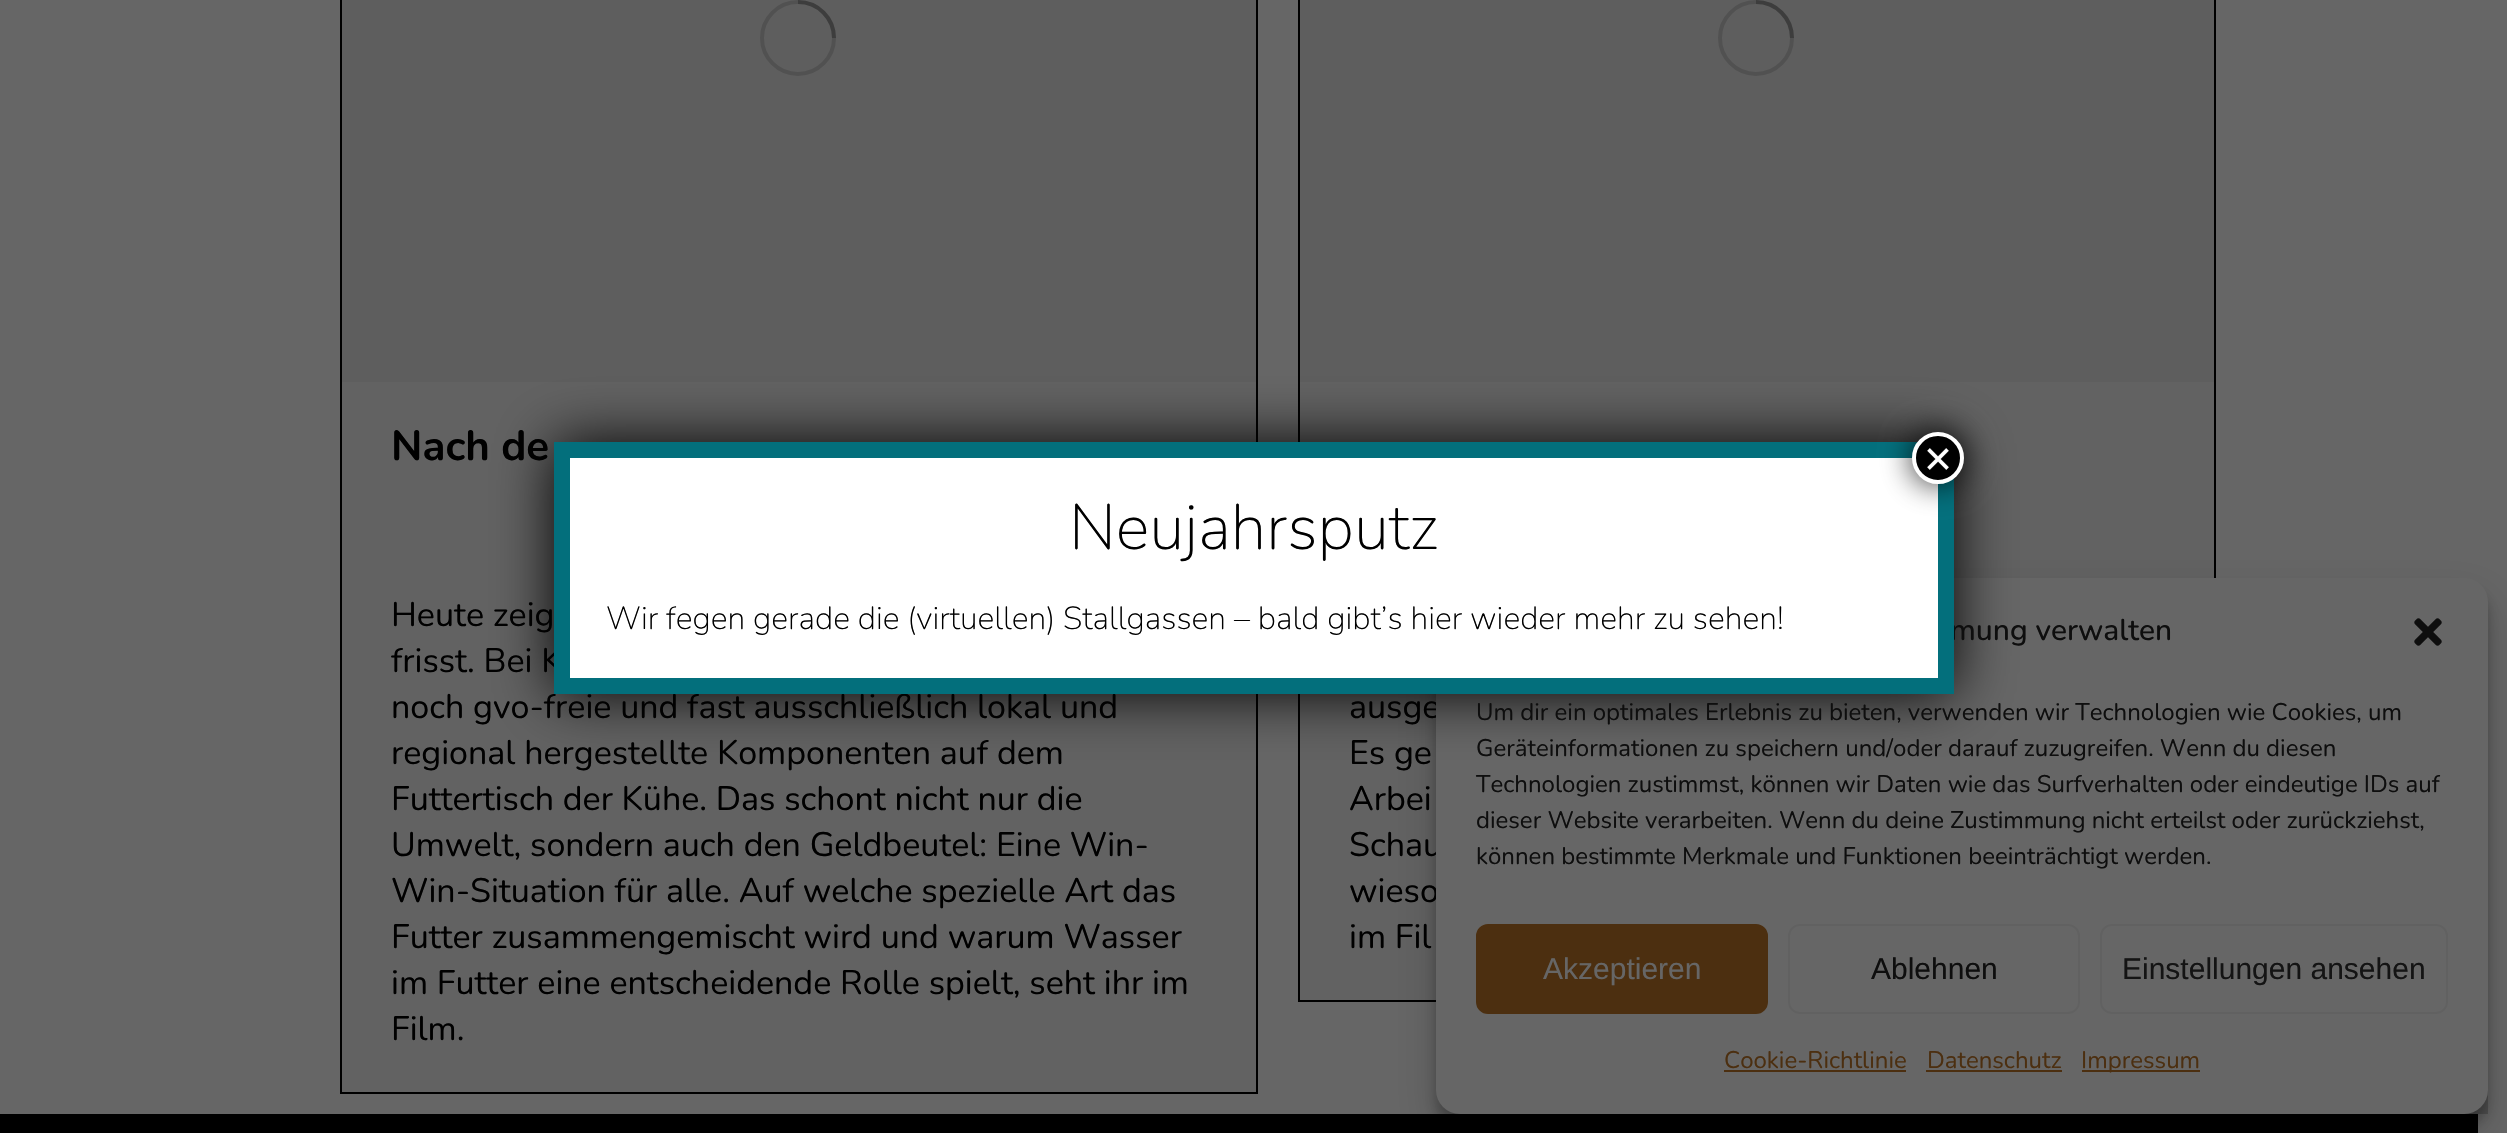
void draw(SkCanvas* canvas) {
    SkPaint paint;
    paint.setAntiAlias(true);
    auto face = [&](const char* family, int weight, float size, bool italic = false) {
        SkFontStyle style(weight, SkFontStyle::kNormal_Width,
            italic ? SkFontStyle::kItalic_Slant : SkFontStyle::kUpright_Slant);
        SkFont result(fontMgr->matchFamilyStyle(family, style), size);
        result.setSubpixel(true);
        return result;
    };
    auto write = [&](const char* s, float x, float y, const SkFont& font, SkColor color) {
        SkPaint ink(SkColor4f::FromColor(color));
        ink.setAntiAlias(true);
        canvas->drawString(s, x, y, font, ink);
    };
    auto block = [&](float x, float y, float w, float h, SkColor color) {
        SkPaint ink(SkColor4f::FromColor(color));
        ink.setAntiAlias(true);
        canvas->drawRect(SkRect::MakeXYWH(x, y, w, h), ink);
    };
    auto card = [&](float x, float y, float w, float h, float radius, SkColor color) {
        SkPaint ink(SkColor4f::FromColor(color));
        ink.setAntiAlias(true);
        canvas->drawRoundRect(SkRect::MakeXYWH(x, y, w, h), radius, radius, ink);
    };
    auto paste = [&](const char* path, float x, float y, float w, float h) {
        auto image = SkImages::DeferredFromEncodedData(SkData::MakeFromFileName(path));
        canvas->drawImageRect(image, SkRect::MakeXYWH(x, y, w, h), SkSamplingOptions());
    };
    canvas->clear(SkColorSetRGB(102, 102, 102));
    block(342, 382, 914, 710, SkColorSetRGB(98, 98, 98));
    paint.setStyle(SkPaint::kStroke_Style);
    paint.setStrokeWidth(2);
    paint.setColor(SK_ColorBLACK);
    canvas->drawRect(SkRect::MakeXYWH(341, -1, 916, 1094), paint);
    block(342, 0, 914, 382, SkColorSetRGB(94, 94, 94));
    paint.setStrokeWidth(4);
    paint.setColor(SkColorSetRGB(81, 81, 81));
    canvas->drawCircle(798, 38, 36, paint);
    paint.setColor(SkColorSetARGB(64, 0, 0, 0));
    canvas->drawPath(SkPathBuilder().moveTo(834, 38).cubicTo(834, 18, 818, 2, 798, 2).detach(), paint);
    auto kFont1 = face("Nunito", 700, 42);
    write("Nach de", 391, 460, kFont1, SK_ColorBLACK);
    auto kFont2 = face("Nunito", 400, 34);
    write("Heute zeig", 391, 626, kFont2, SK_ColorBLACK);
    write("frisst. Bei K", 391, 672, kFont2, SK_ColorBLACK);
    write("noch gvo-freie und fast ausschließlich lokal und", 391, 718, kFont2, SK_ColorBLACK);
    write("regional hergestellte Komponenten auf dem", 391, 764, kFont2, SK_ColorBLACK);
    write("Futtertisch der Kühe. Das schont nicht nur die", 391, 810, kFont2, SK_ColorBLACK);
    write("Umwelt, sondern auch den Geldbeutel: Eine Win-", 391, 856, kFont2, SK_ColorBLACK);
    write("Win-Situation für alle. Auf welche spezielle Art das", 391, 902, kFont2, SK_ColorBLACK);
    write("Futter zusammengemischt wird und warum Wasser", 391, 948, kFont2, SK_ColorBLACK);
    write("im Futter eine entscheidende Rolle spielt, seht ihr im", 391, 994, kFont2, SK_ColorBLACK);
    write("Film.", 391, 1040, kFont2, SK_ColorBLACK);
    block(1300, 382, 914, 618, SkColorSetRGB(98, 98, 98));
    paint.setStrokeWidth(2);
    paint.setColor(SK_ColorBLACK);
    canvas->drawRect(SkRect::MakeXYWH(1299, -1, 916, 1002), paint);
    block(1300, 0, 914, 382, SkColorSetRGB(94, 94, 94));
    paint.setStrokeWidth(4);
    paint.setColor(SkColorSetRGB(81, 81, 81));
    canvas->drawCircle(1756, 38, 36, paint);
    paint.setColor(SkColorSetARGB(64, 0, 0, 0));
    canvas->drawPath(SkPathBuilder().moveTo(1792, 38).cubicTo(1792, 18, 1776, 2, 1756, 2).detach(), paint);
    write("ausge", 1349, 718, kFont2, SK_ColorBLACK);
    write("Es ge", 1349, 764, kFont2, SK_ColorBLACK);
    write("Arbei", 1349, 810, kFont2, SK_ColorBLACK);
    write("Schau", 1349, 856, kFont2, SK_ColorBLACK);
    write("wieso", 1349, 902, kFont2, SK_ColorBLACK);
    write("im Fil", 1349, 948, kFont2, SK_ColorBLACK);
    block(2464, 1090, 24, 24, SkColorSetRGB(82, 82, 82));
    block(0, 1114, 2478, 19, SK_ColorBLACK);
    paint.setStyle(SkPaint::kFill_Style);
    paint.setColor(SkColorSetARGB(59, 0, 0, 0));
    paint.setMaskFilter(SkMaskFilter::MakeBlur(kNormal_SkBlurStyle, 6));
    canvas->drawRoundRect(SkRect::MakeXYWH(1436, 590, 1052, 536), 24, 24, paint);
    paint.setMaskFilter(nullptr);
    paint.setColor(SkColorSetARGB(48, 0, 0, 0));
    paint.setMaskFilter(SkMaskFilter::MakeBlur(kNormal_SkBlurStyle, 20));
    canvas->drawRoundRect(SkRect::MakeXYWH(1436, 598, 1052, 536), 24, 24, paint);
    paint.setMaskFilter(nullptr);
    card(1436, 578, 1052, 536, 24, SkColorSetRGB(102, 102, 102));
    paint.setColor(SkColorSetRGB(2, 2, 2));
    paint.setMaskFilter(SkMaskFilter::MakeBlur(kNormal_SkBlurStyle, 30));
    canvas->drawRoundRect(SkRect::MakeXYWH(554, 442, 1400, 252), 6, 6, paint);
    paint.setMaskFilter(nullptr);
    block(570, 458, 1368, 220, SK_ColorWHITE);
    auto kFont3 = face("Nunito", 500, 30);
    write("mung verwalten", 1950, 640, kFont3, SkColorSetRGB(14, 14, 14));
    paint.setStyle(SkPaint::kStroke_Style);
    paint.setStrokeWidth(16);
    paint.setColor(SkColorSetRGB(3, 111, 124));
    canvas->drawPath(SkPathBuilder().moveTo(562, 450).lineTo(1946, 450).lineTo(1946, 686).lineTo(562, 686).close().detach(), paint);
    paint.setStyle(SkPaint::kFill_Style);
    paint.setColor(SkColorSetARGB(191, 2, 2, 2));
    paint.setMaskFilter(SkMaskFilter::MakeBlur(kNormal_SkBlurStyle, 15));
    canvas->drawRoundRect(SkRect::MakeXYWH(1910, 430, 56, 56), 28, 28, paint);
    paint.setMaskFilter(nullptr);
    paint.setColor(SK_ColorBLACK);
    canvas->drawCircle(1938, 458, 24, paint);
    paint.setStyle(SkPaint::kStroke_Style);
    paint.setStrokeWidth(4);
    paint.setColor(SK_ColorWHITE);
    canvas->drawCircle(1938, 458, 24, paint);
    auto kFont4 = face("Liberation Sans", 400, 48);
    write("×", 1924, 475, kFont4, SK_ColorWHITE);
    auto kFont5 = face("Nunito", 200, 64);
    write("Neujahrsputz", 1069, 549, kFont5, SK_ColorBLACK);
    auto kFont6 = face("Nunito", 200, 32);
    write("Wir fegen gerade die (virtuellen) Stallgassen – bald gibt’s hier wieder mehr zu sehen!", 606, 629, kFont6, SK_ColorBLACK);
    paste("pic1.png", 2414, 618, 28, 28);
    auto kFont7 = face("Nunito", 400, 24);
    write("Um dir ein optimales Erlebnis zu bieten, verwenden wir Technologien wie Cookies, um", 1476, 720, kFont7, SkColorSetRGB(14, 14, 14));
    write("Geräteinformationen zu speichern und/oder darauf zuzugreifen. Wenn du diesen", 1476, 756, kFont7, SkColorSetRGB(14, 14, 14));
    write("Technologien zustimmst, können wir Daten wie das Surfverhalten oder eindeutige IDs auf", 1476, 792, kFont7, SkColorSetRGB(14, 14, 14));
    write("dieser Website verarbeiten. Wenn du deine Zustimmung nicht erteilst oder zurückziehst,", 1476, 828, kFont7, SkColorSetRGB(14, 14, 14));
    write("können bestimmte Merkmale und Funktionen beeinträchtigt werden.", 1476, 864, kFont7, SkColorSetRGB(14, 14, 14));
    paint.setStyle(SkPaint::kFill_Style);
    paint.setColor(SkColorSetRGB(76, 47, 16));
    canvas->drawRoundRect(SkRect::MakeXYWH(1477, 925, 290, 88), 11, 11, paint);
    paint.setStyle(SkPaint::kStroke_Style);
    paint.setStrokeWidth(2);
    canvas->drawRoundRect(SkRect::MakeXYWH(1477, 925, 290, 88), 11, 11, paint);
    auto kFont8 = face("Liberation Sans", 400, 30);
    write("Akzeptieren", 1543, 979, kFont8, SkColorSetRGB(102, 102, 102));
    paint.setColor(SkColorSetRGB(97, 97, 97));
    canvas->drawRoundRect(SkRect::MakeXYWH(1789, 925, 290, 88), 11, 11, paint);
    write("Ablehnen", 1871, 979, kFont8, SkColorSetRGB(14, 14, 14));
    canvas->drawRoundRect(SkRect::MakeXYWH(2101, 925, 346, 88), 11, 11, paint);
    write("Einstellungen ansehen", 2122, 979, kFont8, SkColorSetRGB(20, 20, 20));
    write("Cookie-Richtlinie", 1724, 1068, kFont7, SkColorSetRGB(76, 47, 16));
    block(1724, 1070, 182, 2, SkColorSetRGB(76, 47, 16));
    write("Datenschutz", 1927, 1068, kFont7, SkColorSetRGB(76, 47, 16));
    block(1926, 1070, 136, 2, SkColorSetRGB(76, 47, 16));
    block(2082, 1070, 118, 2, SkColorSetRGB(76, 47, 16));
    write("Impressum", 2081, 1068, kFont7, SkColorSetRGB(76, 47, 16));
}
